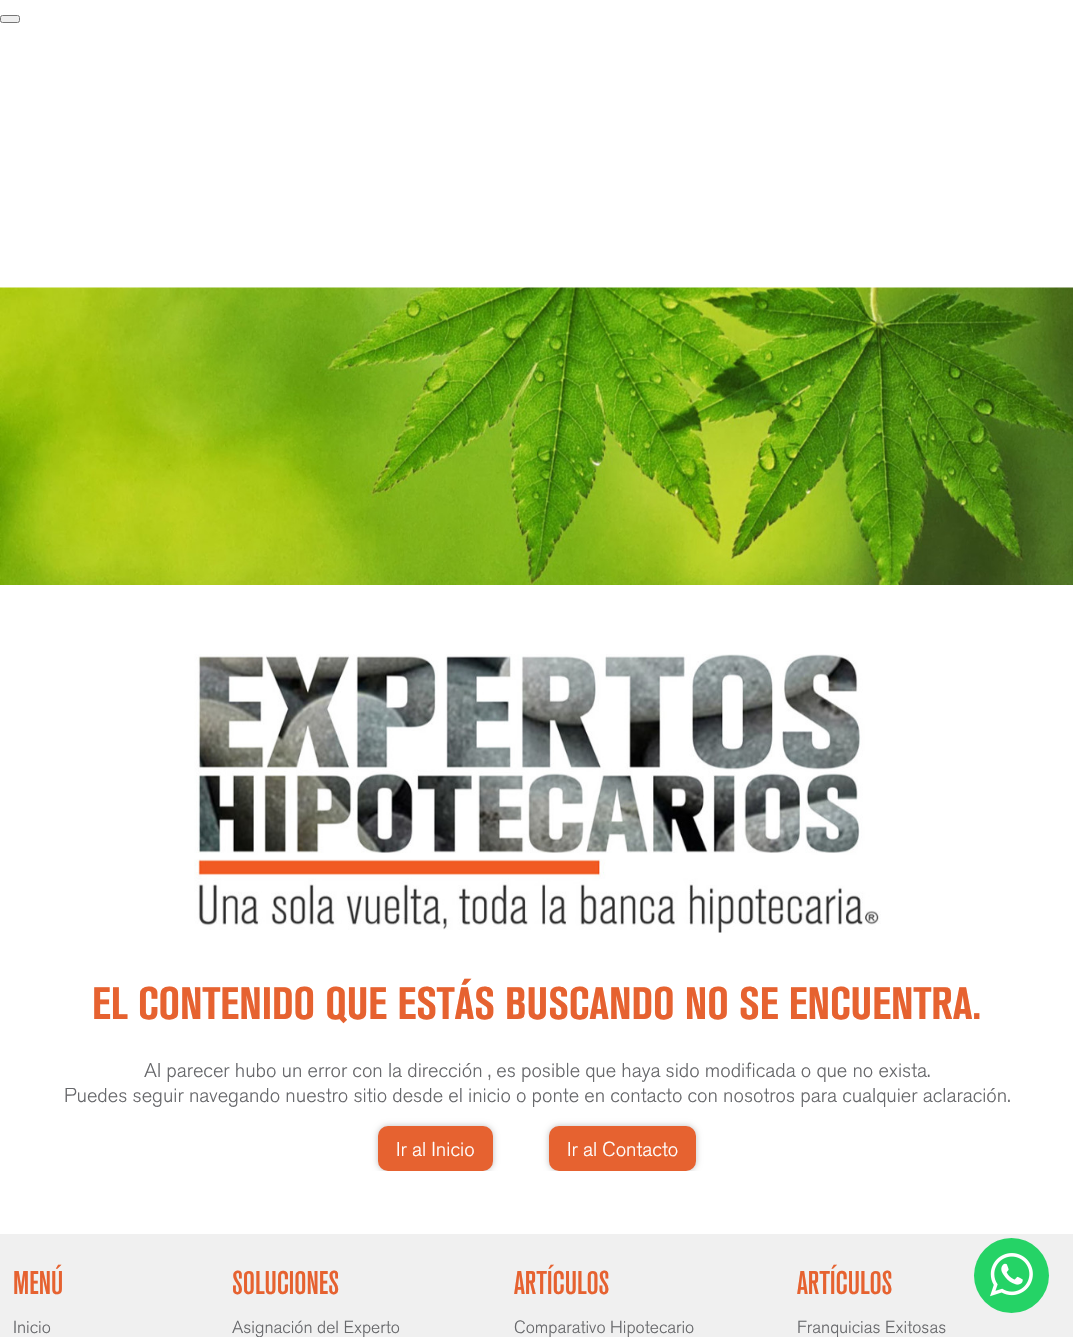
void draw(SkCanvas* canvas) {
    SkPaint paint;
    paint.setAntiAlias(true);
    auto face = [&](const char* family, int weight, float size, bool italic = false) {
        SkFontStyle style(weight, SkFontStyle::kNormal_Width,
            italic ? SkFontStyle::kItalic_Slant : SkFontStyle::kUpright_Slant);
        SkFont result(fontMgr->matchFamilyStyle(family, style), size);
        result.setSubpixel(true);
        return result;
    };
    auto write = [&](const char* s, float x, float y, const SkFont& font, SkColor color) {
        SkPaint ink(SkColor4f::FromColor(color));
        ink.setAntiAlias(true);
        canvas->drawString(s, x, y, font, ink);
    };
    auto block = [&](float x, float y, float w, float h, SkColor color) {
        SkPaint ink(SkColor4f::FromColor(color));
        ink.setAntiAlias(true);
        canvas->drawRect(SkRect::MakeXYWH(x, y, w, h), ink);
    };
    auto card = [&](float x, float y, float w, float h, float radius, SkColor color) {
        SkPaint ink(SkColor4f::FromColor(color));
        ink.setAntiAlias(true);
        canvas->drawRoundRect(SkRect::MakeXYWH(x, y, w, h), radius, radius, ink);
    };
    auto paste = [&](const char* path, float x, float y, float w, float h) {
        auto image = SkImages::DeferredFromEncodedData(SkData::MakeFromFileName(path));
        canvas->drawImageRect(image, SkRect::MakeXYWH(x, y, w, h), SkSamplingOptions());
    };
    canvas->clear(SK_ColorWHITE);
    paint.setColor(SkColorSetRGB(239, 239, 239));
    canvas->drawRoundRect(SkRect::MakeXYWH(0.5f, 15.5f, 19, 7), 2, 2, paint);
    paint.setStyle(SkPaint::kStroke_Style);
    paint.setStrokeWidth(1);
    paint.setColor(SkColorSetRGB(118, 118, 118));
    canvas->drawRoundRect(SkRect::MakeXYWH(0.5f, 15.5f, 19, 7), 2, 2, paint);
    paste("pic1.png", 0, 287, 1073, 298);
    paste("pic2.png", 194, 654, 687, 279);
    auto kFont1 = face("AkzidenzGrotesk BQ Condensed", 700, 45);
    write("EL CONTENIDO QUE ESTÁS BUSCANDO NO SE ENCUENTRA.", 92, 1019, kFont1, SkColorSetRGB(230, 98, 48));
    auto kFont2 = face("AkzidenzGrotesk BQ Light", 300, 20);
    write("Al parecer hubo un error con la dirección , es posible que haya sido modificada o que no exista.", 144, 1077, kFont2, SkColorSetRGB(103, 104, 107));
    write("Puedes seguir navegando nuestro sitio desde el inicio o ponte en contacto con nosotros para cualquier aclaración.", 64, 1102, kFont2, SkColorSetRGB(103, 104, 107));
    canvas->save();
    canvas->clipRect(SkRect::MakeXYWH(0, 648, 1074, 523));
    paint.setStyle(SkPaint::kFill_Style);
    paint.setColor(SkColorSetARGB(64, 0, 0, 0));
    paint.setMaskFilter(SkMaskFilter::MakeBlur(kNormal_SkBlurStyle, 3));
    canvas->drawRoundRect(SkRect::MakeXYWH(378, 1126, 115, 45), 10, 10, paint);
    paint.setMaskFilter(nullptr);
    canvas->restore();
    card(378, 1126, 115, 45, 10, SkColorSetRGB(230, 98, 48));
    write("Ir al Inicio", 396, 1156, kFont2, SK_ColorWHITE);
    canvas->save();
    canvas->clipRect(SkRect::MakeXYWH(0, 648, 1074, 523));
    paint.setMaskFilter(SkMaskFilter::MakeBlur(kNormal_SkBlurStyle, 3));
    canvas->drawRoundRect(SkRect::MakeXYWH(549, 1126, 147, 45), 10, 10, paint);
    paint.setMaskFilter(nullptr);
    canvas->restore();
    card(549, 1126, 147, 45, 10, SkColorSetRGB(230, 98, 48));
    write("Ir al Contacto", 567, 1156, kFont2, SK_ColorWHITE);
    block(0, 1234, 1073, 103, SkColorSetRGB(240, 240, 240));
    auto kFont3 = face("AkzidenzGrotesk BQ Condensed", 500, 32.5f);
    write("MENÚ", 13, 1294, kFont3, SkColorSetRGB(230, 98, 48));
    auto kFont4 = face("AkzidenzGrotesk BQ Light", 300, 17.5f);
    write("Inicio", 13, 1333, kFont4, SkColorSetRGB(103, 104, 107));
    write("SOLUCIONES", 232, 1294, kFont3, SkColorSetRGB(230, 98, 48));
    write("Asignación del Experto", 232, 1333, kFont4, SkColorSetRGB(103, 104, 107));
    write("ARTÍCULOS", 514, 1294, kFont3, SkColorSetRGB(230, 98, 48));
    write("Comparativo Hipotecario", 514, 1333, kFont4, SkColorSetRGB(103, 104, 107));
    write("ARTÍCULOS", 797, 1294, kFont3, SkColorSetRGB(230, 98, 48));
    write("Franquicias Exitosas", 797, 1333, kFont4, SkColorSetRGB(103, 104, 107));
    paint.setColor(SkColorSetRGB(37, 211, 102));
    canvas->drawCircle(1011.5f, 1275.5f, 37.5f, paint);
    paste("pic3.png", 990, 1253, 43, 44);
}
